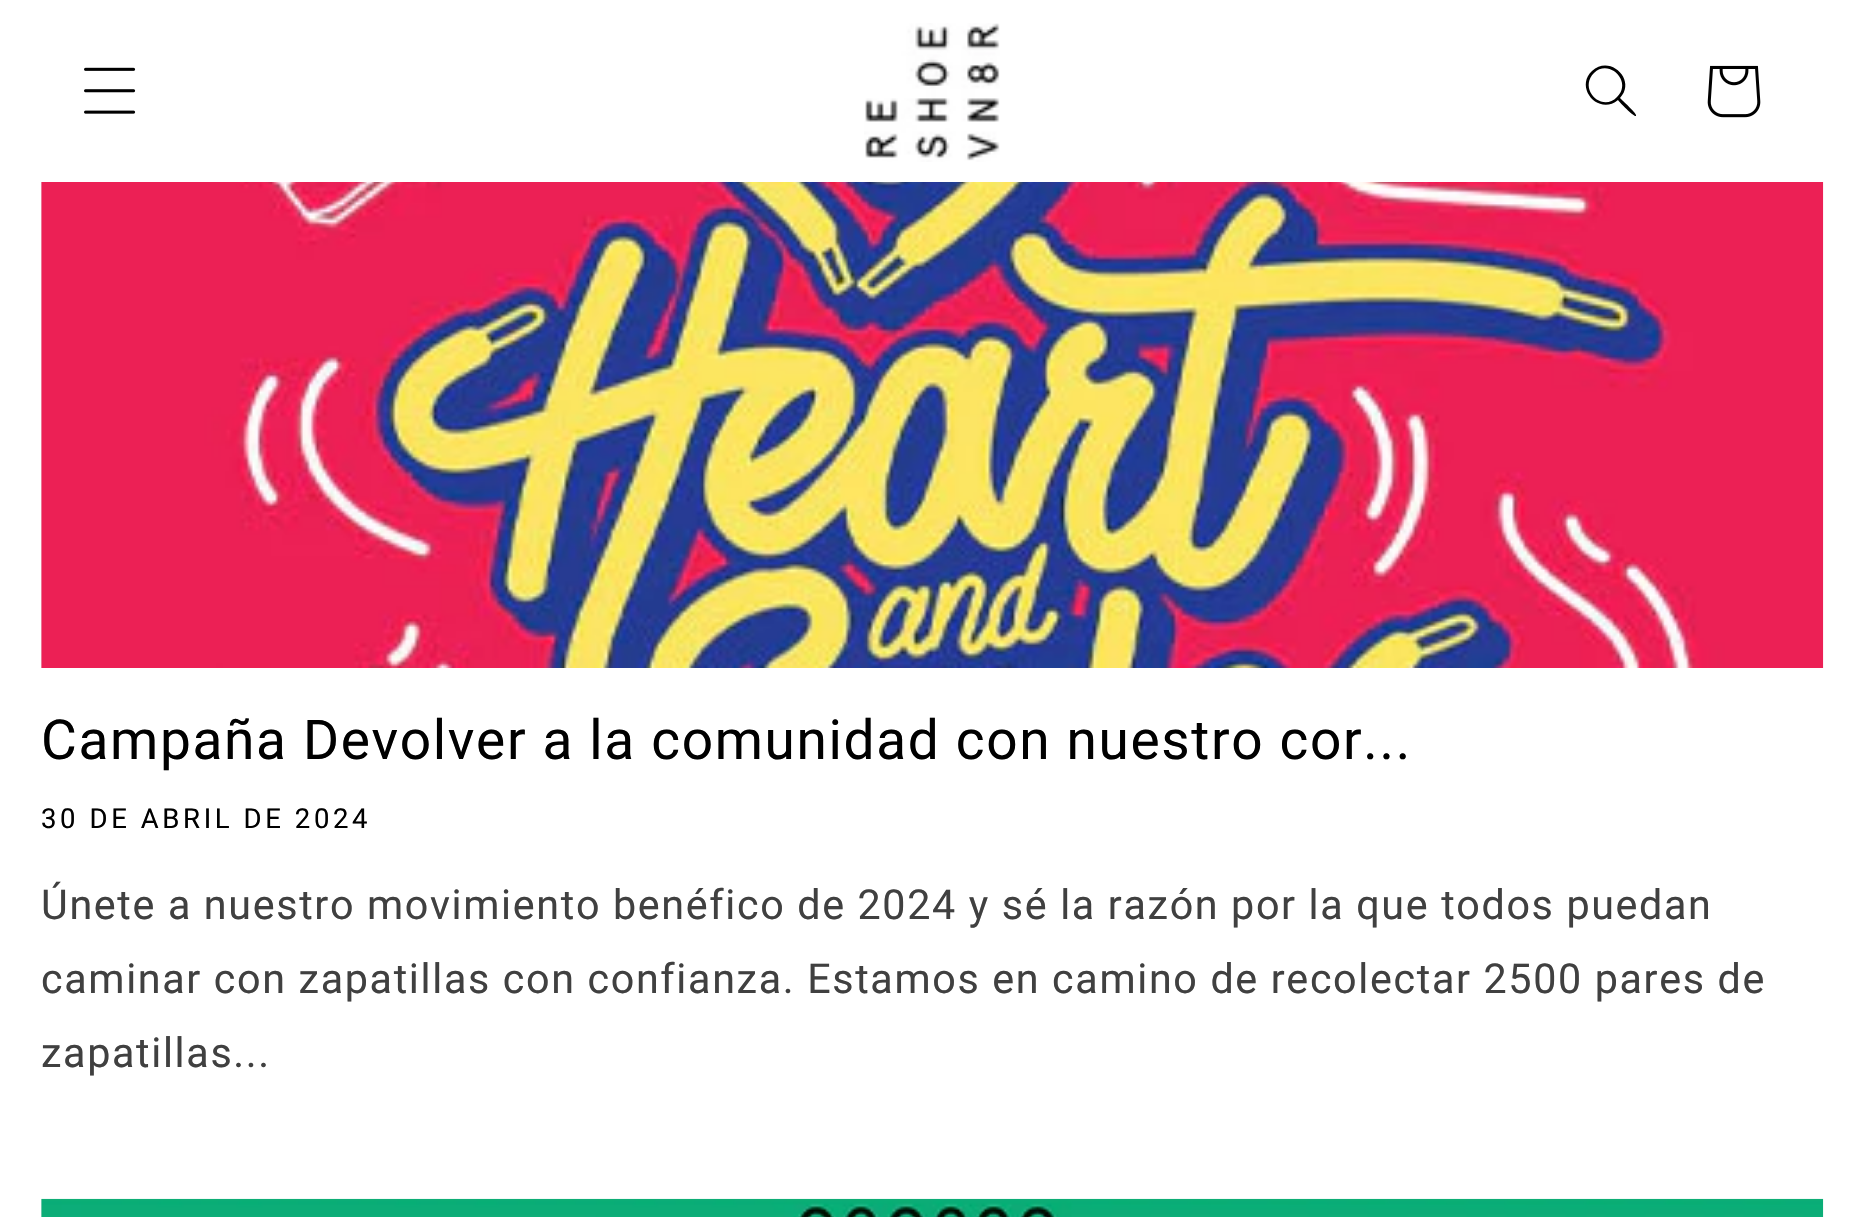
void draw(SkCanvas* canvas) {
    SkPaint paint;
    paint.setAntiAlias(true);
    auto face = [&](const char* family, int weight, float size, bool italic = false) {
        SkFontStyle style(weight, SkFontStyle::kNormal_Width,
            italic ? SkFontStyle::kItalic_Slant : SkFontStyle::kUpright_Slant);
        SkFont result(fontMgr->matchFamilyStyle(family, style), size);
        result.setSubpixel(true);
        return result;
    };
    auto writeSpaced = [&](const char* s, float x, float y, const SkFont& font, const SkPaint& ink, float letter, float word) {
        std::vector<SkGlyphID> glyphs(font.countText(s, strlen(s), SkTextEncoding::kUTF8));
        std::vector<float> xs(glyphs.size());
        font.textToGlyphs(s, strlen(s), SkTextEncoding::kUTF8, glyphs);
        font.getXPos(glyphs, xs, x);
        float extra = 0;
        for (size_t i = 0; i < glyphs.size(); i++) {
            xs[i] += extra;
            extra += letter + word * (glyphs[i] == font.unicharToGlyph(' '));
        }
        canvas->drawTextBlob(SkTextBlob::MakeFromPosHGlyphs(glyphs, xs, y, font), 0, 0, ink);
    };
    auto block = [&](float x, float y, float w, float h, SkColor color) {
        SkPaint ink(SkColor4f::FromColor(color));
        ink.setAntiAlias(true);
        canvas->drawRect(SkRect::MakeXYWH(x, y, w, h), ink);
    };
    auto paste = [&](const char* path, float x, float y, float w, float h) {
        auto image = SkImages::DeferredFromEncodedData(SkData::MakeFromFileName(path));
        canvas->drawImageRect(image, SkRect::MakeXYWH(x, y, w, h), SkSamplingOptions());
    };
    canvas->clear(SK_ColorWHITE);
    paste("pic1.png", 84, 67, 52, 47);
    paste("pic2.png", 864, 23, 136, 139);
    paint.setColor(SK_ColorBLACK);
    canvas->drawPath(SkPathBuilder(SkPathFillType::kEvenOdd).moveTo(1617, 97).cubicTo(1602, 113, 1578, 89, 1594, 73).cubicTo(1609, 58, 1633, 82, 1617, 97).close().moveTo(1618, 100).cubicTo(1599, 116, 1574, 88, 1592, 71).cubicTo(1610, 54, 1637, 80, 1620, 98).cubicTo(1622, 100, 1636, 113, 1636, 115).lineTo(1636, 116).cubicTo(1634, 117, 1620, 103, 1618, 100).close().detach(), paint);
    paste("pic3.png", 1707, 65, 54, 53);
    block(41, 182, 1, 486, SkColorSetRGB(232, 232, 232));
    paste("pic4.png", 41, 182, 1783, 486);
    auto kFont1 = face("Roboto", 400, 55);
    writeSpaced("Campaña Devolver a la comunidad con nuestro cor...", 41, 759, kFont1, paint, 1.65f, 0);
    auto kFont2 = face("Roboto", 400, 27.5f);
    writeSpaced("30 DE ABRIL DE 2024", 41, 828, kFont2, paint, 3.6f, 0);
    auto kFont3 = face("Roboto", 400, 41.25f);
    paint.setColor(SkColorSetRGB(64, 64, 64));
    writeSpaced("Únete a nuestro movimiento benéfico de 2024 y sé la razón por la que todos puedan", 41, 919, kFont3, paint, 1.65f, 0);
    writeSpaced("caminar con zapatillas con confianza. Estamos en camino de recolectar 2500 pares de", 41, 993, kFont3, paint, 1.65f, 0);
    writeSpaced("zapatillas...", 41, 1067, kFont3, paint, 1.65f, 0);
    block(41, 1199, 1, 18, SkColorSetRGB(231, 231, 231));
    paste("pic5.png", 41, 1198, 1783, 19);
}
